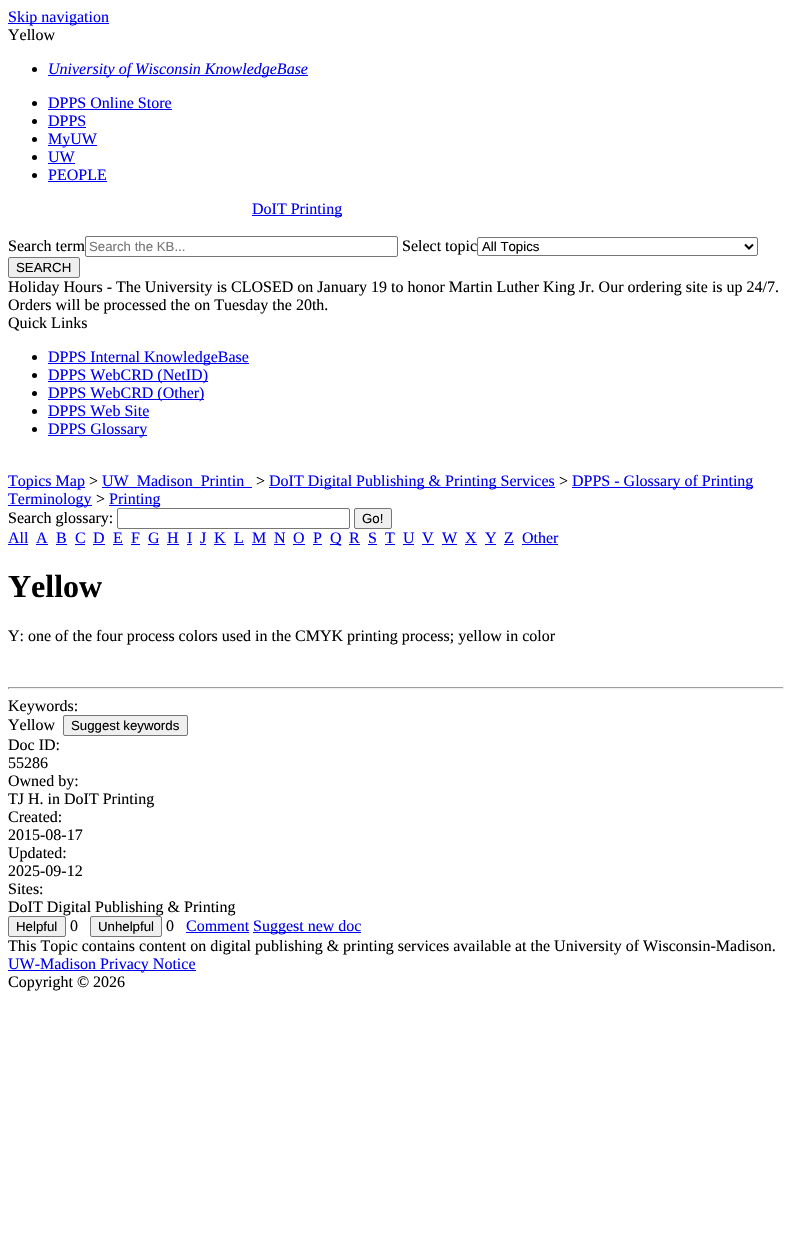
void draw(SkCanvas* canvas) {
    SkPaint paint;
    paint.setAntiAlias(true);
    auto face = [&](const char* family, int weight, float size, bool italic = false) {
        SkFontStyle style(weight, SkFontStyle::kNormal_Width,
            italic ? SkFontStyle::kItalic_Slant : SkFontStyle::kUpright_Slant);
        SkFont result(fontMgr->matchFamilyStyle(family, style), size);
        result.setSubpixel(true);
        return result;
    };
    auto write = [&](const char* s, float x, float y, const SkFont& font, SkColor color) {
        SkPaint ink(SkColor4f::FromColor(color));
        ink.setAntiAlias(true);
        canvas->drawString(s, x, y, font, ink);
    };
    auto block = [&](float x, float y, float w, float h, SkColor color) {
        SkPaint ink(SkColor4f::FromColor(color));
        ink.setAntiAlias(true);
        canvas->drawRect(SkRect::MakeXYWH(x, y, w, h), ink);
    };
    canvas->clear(SK_ColorWHITE);
    block(8, 23, 101, 1, SkColorSetRGB(0, 0, 238));
    auto kFont1 = face("Liberation Serif", 400, 16);
    write("Skip navigation", 8, 22, kFont1, SkColorSetRGB(0, 0, 238));
    write("Yellow", 8, 40, kFont1, SK_ColorBLACK);
    paint.setColor(SK_ColorBLACK);
    canvas->drawCircle(34.5f, 69.5f, 2.5f, paint);
    block(48, 75, 260, 1, SkColorSetRGB(0, 0, 238));
    auto kFont2 = face("Liberation Serif", 400, 16, true);
    write("University of Wisconsin KnowledgeBase", 48, 74, kFont2, SkColorSetRGB(0, 0, 238));
    canvas->drawCircle(34.5f, 103.5f, 2.5f, paint);
    write("DPPS Online Store", 48, 108, kFont1, SkColorSetRGB(0, 0, 238));
    block(48, 109, 124, 1, SkColorSetRGB(0, 0, 238));
    canvas->drawCircle(34.5f, 121.5f, 2.5f, paint);
    write("DPPS", 48, 126, kFont1, SkColorSetRGB(0, 0, 238));
    block(48, 127, 38, 1, SkColorSetRGB(0, 0, 238));
    canvas->drawCircle(34.5f, 139.5f, 2.5f, paint);
    block(48, 145, 49, 1, SkColorSetRGB(0, 0, 238));
    write("MyUW", 48, 144, kFont1, SkColorSetRGB(0, 0, 238));
    canvas->drawCircle(34.5f, 157.5f, 2.5f, paint);
    write("UW", 48, 162, kFont1, SkColorSetRGB(0, 0, 238));
    block(48, 163, 27, 1, SkColorSetRGB(0, 0, 238));
    canvas->drawCircle(34.5f, 175.5f, 2.5f, paint);
    write("PEOPLE", 48, 180, kFont1, SkColorSetRGB(0, 0, 238));
    block(48, 181, 59, 1, SkColorSetRGB(0, 0, 238));
    block(252, 215, 90, 1, SkColorSetRGB(0, 0, 238));
    write("DoIT Printing", 252, 214, kFont1, SkColorSetRGB(0, 0, 238));
    write("Search term", 8, 251, kFont1, SK_ColorBLACK);
    paint.setStyle(SkPaint::kStroke_Style);
    paint.setStrokeWidth(1);
    paint.setColor(SkColorSetRGB(118, 118, 118));
    canvas->drawRoundRect(SkRect::MakeXYWH(85.5f, 236.5f, 312, 20), 1.5f, 1.5f, paint);
    auto kFont3 = face("Liberation Sans", 400, 13.25f);
    write("Search the KB...", 89, 251, kFont3, SkColorSetRGB(117, 117, 117));
    write("Select topic", 402, 251, kFont1, SK_ColorBLACK);
    canvas->drawRoundRect(SkRect::MakeXYWH(477.5f, 237.5f, 280, 18), 1.5f, 1.5f, paint);
    paint.setStrokeWidth(2);
    paint.setColor(SK_ColorBLACK);
    canvas->drawPath(SkPathBuilder().moveTo(745, 244.5f).lineTo(749, 248.5f).lineTo(753, 244.5f).detach(), paint);
    write("All Topics", 482, 251, kFont3, SK_ColorBLACK);
    paint.setStyle(SkPaint::kFill_Style);
    paint.setColor(SkColorSetRGB(239, 239, 239));
    canvas->drawRoundRect(SkRect::MakeXYWH(8.5f, 257.5f, 71, 20), 1.5f, 1.5f, paint);
    paint.setStyle(SkPaint::kStroke_Style);
    paint.setStrokeWidth(1);
    paint.setColor(SkColorSetRGB(118, 118, 118));
    canvas->drawRoundRect(SkRect::MakeXYWH(8.5f, 257.5f, 71, 20), 1.5f, 1.5f, paint);
    write("SEARCH", 16, 272, kFont3, SK_ColorBLACK);
    write("Holiday Hours - The University is CLOSED on January 19 to honor Martin Luther King Jr. Our ordering site is up 24/7.", 8, 292, kFont1, SK_ColorBLACK);
    write("Orders will be processed the on Tuesday the 20th.", 8, 310, kFont1, SK_ColorBLACK);
    write("Quick Links", 8, 328, kFont1, SK_ColorBLACK);
    paint.setStyle(SkPaint::kFill_Style);
    paint.setColor(SK_ColorBLACK);
    canvas->drawCircle(34.5f, 357.5f, 2.5f, paint);
    block(48, 363, 201, 1, SkColorSetRGB(0, 0, 238));
    write("DPPS Internal KnowledgeBase", 48, 362, kFont1, SkColorSetRGB(0, 0, 238));
    canvas->drawCircle(34.5f, 375.5f, 2.5f, paint);
    block(48, 381, 160, 1, SkColorSetRGB(0, 0, 238));
    write("DPPS WebCRD (NetID)", 48, 380, kFont1, SkColorSetRGB(0, 0, 238));
    canvas->drawCircle(34.5f, 393.5f, 2.5f, paint);
    block(48, 399, 156, 1, SkColorSetRGB(0, 0, 238));
    write("DPPS WebCRD (Other)", 48, 398, kFont1, SkColorSetRGB(0, 0, 238));
    canvas->drawCircle(34.5f, 411.5f, 2.5f, paint);
    write("DPPS Web Site", 48, 416, kFont1, SkColorSetRGB(0, 0, 238));
    block(48, 417, 101, 1, SkColorSetRGB(0, 0, 238));
    canvas->drawCircle(34.5f, 429.5f, 2.5f, paint);
    block(48, 435, 99, 1, SkColorSetRGB(0, 0, 238));
    write("DPPS Glossary", 48, 434, kFont1, SkColorSetRGB(0, 0, 238));
    block(8, 487, 77, 1, SkColorSetRGB(0, 0, 238));
    write("Topics Map", 8, 486, kFont1, SkColorSetRGB(0, 0, 238));
    write(">", 89, 486, kFont1, SK_ColorBLACK);
    block(102, 487, 150, 1, SkColorSetRGB(0, 0, 238));
    write("UW_Madison_Printin", 102, 486, kFont1, SkColorSetRGB(0, 0, 238));
    write(">", 256, 486, kFont1, SK_ColorBLACK);
    block(269, 487, 286, 1, SkColorSetRGB(0, 0, 238));
    write("DoIT Digital Publishing & Printing Services", 269, 486, kFont1, SkColorSetRGB(0, 0, 238));
    write(">", 559, 486, kFont1, SK_ColorBLACK);
    block(572, 487, 181, 1, SkColorSetRGB(0, 0, 238));
    write("DPPS - Glossary of Printing", 572, 486, kFont1, SkColorSetRGB(0, 0, 238));
    block(8, 505, 84, 1, SkColorSetRGB(0, 0, 238));
    write("Terminology", 8, 504, kFont1, SkColorSetRGB(0, 0, 238));
    write(">", 96, 504, kFont1, SK_ColorBLACK);
    block(109, 505, 51, 1, SkColorSetRGB(0, 0, 238));
    write("Printing", 109, 504, kFont1, SkColorSetRGB(0, 0, 238));
    write("Search glossary:", 8, 523, kFont1, SK_ColorBLACK);
    paint.setStyle(SkPaint::kStroke_Style);
    paint.setColor(SkColorSetRGB(118, 118, 118));
    canvas->drawRoundRect(SkRect::MakeXYWH(117.5f, 508.5f, 232, 20), 1.5f, 1.5f, paint);
    paint.setStyle(SkPaint::kFill_Style);
    paint.setColor(SkColorSetRGB(239, 239, 239));
    canvas->drawRoundRect(SkRect::MakeXYWH(354.5f, 508.5f, 37, 20), 1.5f, 1.5f, paint);
    paint.setStyle(SkPaint::kStroke_Style);
    paint.setColor(SkColorSetRGB(118, 118, 118));
    canvas->drawRoundRect(SkRect::MakeXYWH(354.5f, 508.5f, 37, 20), 1.5f, 1.5f, paint);
    write("Go!", 362, 523, kFont3, SK_ColorBLACK);
    write("All", 8, 543, kFont1, SkColorSetRGB(0, 0, 238));
    block(8, 544, 20, 1, SkColorSetRGB(0, 0, 238));
    write("A", 36, 543, kFont1, SkColorSetRGB(0, 0, 238));
    block(36, 544, 12, 1, SkColorSetRGB(0, 0, 238));
    write("B", 56, 543, kFont1, SkColorSetRGB(0, 0, 238));
    block(56, 544, 11, 1, SkColorSetRGB(0, 0, 238));
    write("C", 75, 543, kFont1, SkColorSetRGB(0, 0, 238));
    block(75, 544, 10, 1, SkColorSetRGB(0, 0, 238));
    write("D", 93, 543, kFont1, SkColorSetRGB(0, 0, 238));
    block(93, 544, 12, 1, SkColorSetRGB(0, 0, 238));
    write("E", 113, 543, kFont1, SkColorSetRGB(0, 0, 238));
    block(113, 544, 10, 1, SkColorSetRGB(0, 0, 238));
    write("F", 131, 543, kFont1, SkColorSetRGB(0, 0, 238));
    block(131, 544, 9, 1, SkColorSetRGB(0, 0, 238));
    write("G", 148, 543, kFont1, SkColorSetRGB(0, 0, 238));
    block(148, 544, 11, 1, SkColorSetRGB(0, 0, 238));
    write("H", 167, 543, kFont1, SkColorSetRGB(0, 0, 238));
    block(167, 544, 12, 1, SkColorSetRGB(0, 0, 238));
    write("I", 187, 543, kFont1, SkColorSetRGB(0, 0, 238));
    block(187, 544, 5, 1, SkColorSetRGB(0, 0, 238));
    write("J", 200, 543, kFont1, SkColorSetRGB(0, 0, 238));
    block(200, 544, 6, 1, SkColorSetRGB(0, 0, 238));
    write("K", 214, 543, kFont1, SkColorSetRGB(0, 0, 238));
    block(214, 544, 12, 1, SkColorSetRGB(0, 0, 238));
    write("L", 234, 543, kFont1, SkColorSetRGB(0, 0, 238));
    block(234, 544, 10, 1, SkColorSetRGB(0, 0, 238));
    write("M", 252, 543, kFont1, SkColorSetRGB(0, 0, 238));
    block(252, 544, 14, 1, SkColorSetRGB(0, 0, 238));
    write("N", 274, 543, kFont1, SkColorSetRGB(0, 0, 238));
    block(274, 544, 11, 1, SkColorSetRGB(0, 0, 238));
    write("O", 293, 543, kFont1, SkColorSetRGB(0, 0, 238));
    block(293, 544, 12, 1, SkColorSetRGB(0, 0, 238));
    write("P", 313, 543, kFont1, SkColorSetRGB(0, 0, 238));
    block(313, 544, 9, 1, SkColorSetRGB(0, 0, 238));
    block(330, 544, 11, 1, SkColorSetRGB(0, 0, 238));
    write("Q", 330, 543, kFont1, SkColorSetRGB(0, 0, 238));
    write("R", 349, 543, kFont1, SkColorSetRGB(0, 0, 238));
    block(349, 544, 11, 1, SkColorSetRGB(0, 0, 238));
    write("S", 368, 543, kFont1, SkColorSetRGB(0, 0, 238));
    block(368, 544, 9, 1, SkColorSetRGB(0, 0, 238));
    write("T", 385, 543, kFont1, SkColorSetRGB(0, 0, 238));
    block(385, 544, 10, 1, SkColorSetRGB(0, 0, 238));
    write("U", 403, 543, kFont1, SkColorSetRGB(0, 0, 238));
    block(403, 544, 11, 1, SkColorSetRGB(0, 0, 238));
    write("V", 422, 543, kFont1, SkColorSetRGB(0, 0, 238));
    block(422, 544, 12, 1, SkColorSetRGB(0, 0, 238));
    write("W", 442, 543, kFont1, SkColorSetRGB(0, 0, 238));
    block(442, 544, 15, 1, SkColorSetRGB(0, 0, 238));
    write("X", 465, 543, kFont1, SkColorSetRGB(0, 0, 238));
    block(465, 544, 12, 1, SkColorSetRGB(0, 0, 238));
    write("Y", 485, 543, kFont1, SkColorSetRGB(0, 0, 238));
    block(485, 544, 11, 1, SkColorSetRGB(0, 0, 238));
    write("Z", 504, 543, kFont1, SkColorSetRGB(0, 0, 238));
    block(504, 544, 10, 1, SkColorSetRGB(0, 0, 238));
    write("Other", 522, 543, kFont1, SkColorSetRGB(0, 0, 238));
    block(522, 544, 36, 1, SkColorSetRGB(0, 0, 238));
    auto kFont4 = face("Liberation Serif", 700, 32);
    write("Yellow", 8, 597, kFont4, SK_ColorBLACK);
    write("Y: one of the four process colors used in the CMYK printing process; yellow in color", 8, 641, kFont1, SK_ColorBLACK);
    block(8, 687, 776, 1, SkColorSetRGB(159, 159, 159));
    block(783, 687, 1, 2, SkColorSetRGB(238, 238, 238));
    block(8, 688, 776, 1, SkColorSetRGB(238, 238, 238));
    block(8, 687, 1, 2, SkColorSetRGB(159, 159, 159));
    write("Keywords:", 8, 711, kFont1, SK_ColorBLACK);
    write("Yellow", 8, 730, kFont1, SK_ColorBLACK);
    paint.setStyle(SkPaint::kFill_Style);
    paint.setColor(SkColorSetRGB(239, 239, 239));
    canvas->drawRoundRect(SkRect::MakeXYWH(63.5f, 715.5f, 124, 20), 1.5f, 1.5f, paint);
    paint.setStyle(SkPaint::kStroke_Style);
    paint.setColor(SkColorSetRGB(118, 118, 118));
    canvas->drawRoundRect(SkRect::MakeXYWH(63.5f, 715.5f, 124, 20), 1.5f, 1.5f, paint);
    write("Suggest keywords", 71, 730, kFont3, SK_ColorBLACK);
    write("Doc ID:", 8, 750, kFont1, SK_ColorBLACK);
    write("55286", 8, 768, kFont1, SK_ColorBLACK);
    write("Owned by:", 8, 786, kFont1, SK_ColorBLACK);
    write("TJ H. in DoIT Printing", 8, 804, kFont1, SK_ColorBLACK);
    write("Created:", 8, 822, kFont1, SK_ColorBLACK);
    write("2015-08-17", 8, 840, kFont1, SK_ColorBLACK);
    write("Updated:", 8, 858, kFont1, SK_ColorBLACK);
    write("2025-09-12", 8, 876, kFont1, SK_ColorBLACK);
    write("Sites:", 8, 894, kFont1, SK_ColorBLACK);
    write("DoIT Digital Publishing & Printing", 8, 912, kFont1, SK_ColorBLACK);
    paint.setStyle(SkPaint::kFill_Style);
    paint.setColor(SkColorSetRGB(239, 239, 239));
    canvas->drawRoundRect(SkRect::MakeXYWH(8.5f, 916.5f, 57, 20), 1.5f, 1.5f, paint);
    paint.setStyle(SkPaint::kStroke_Style);
    paint.setColor(SkColorSetRGB(118, 118, 118));
    canvas->drawRoundRect(SkRect::MakeXYWH(8.5f, 916.5f, 57, 20), 1.5f, 1.5f, paint);
    write("Helpful", 16, 931, kFont3, SK_ColorBLACK);
    write("0", 70, 931, kFont1, SK_ColorBLACK);
    paint.setStyle(SkPaint::kFill_Style);
    paint.setColor(SkColorSetRGB(239, 239, 239));
    canvas->drawRoundRect(SkRect::MakeXYWH(90.5f, 916.5f, 71, 20), 1.5f, 1.5f, paint);
    paint.setStyle(SkPaint::kStroke_Style);
    paint.setColor(SkColorSetRGB(118, 118, 118));
    canvas->drawRoundRect(SkRect::MakeXYWH(90.5f, 916.5f, 71, 20), 1.5f, 1.5f, paint);
    write("Unhelpful", 98, 931, kFont3, SK_ColorBLACK);
    write("0", 166, 931, kFont1, SK_ColorBLACK);
    write("Comment", 186, 931, kFont1, SkColorSetRGB(0, 0, 238));
    block(186, 932, 63, 1, SkColorSetRGB(0, 0, 238));
    block(253, 932, 108, 1, SkColorSetRGB(0, 0, 238));
    write("Suggest new doc", 253, 931, kFont1, SkColorSetRGB(0, 0, 238));
    write("This Topic contains content on digital publishing & printing services available at the University of Wisconsin-Madison.", 8, 951, kFont1, SK_ColorBLACK);
    block(8, 970, 188, 1, SkColorSetRGB(0, 0, 238));
    write("UW-Madison Privacy Notice", 8, 969, kFont1, SkColorSetRGB(0, 0, 238));
    write("Copyright © 2026", 8, 987, kFont1, SK_ColorBLACK);
}
